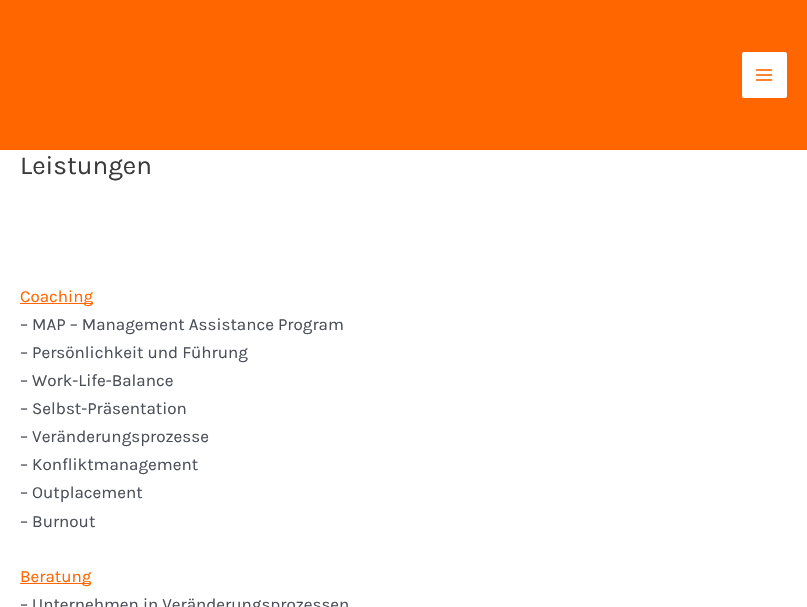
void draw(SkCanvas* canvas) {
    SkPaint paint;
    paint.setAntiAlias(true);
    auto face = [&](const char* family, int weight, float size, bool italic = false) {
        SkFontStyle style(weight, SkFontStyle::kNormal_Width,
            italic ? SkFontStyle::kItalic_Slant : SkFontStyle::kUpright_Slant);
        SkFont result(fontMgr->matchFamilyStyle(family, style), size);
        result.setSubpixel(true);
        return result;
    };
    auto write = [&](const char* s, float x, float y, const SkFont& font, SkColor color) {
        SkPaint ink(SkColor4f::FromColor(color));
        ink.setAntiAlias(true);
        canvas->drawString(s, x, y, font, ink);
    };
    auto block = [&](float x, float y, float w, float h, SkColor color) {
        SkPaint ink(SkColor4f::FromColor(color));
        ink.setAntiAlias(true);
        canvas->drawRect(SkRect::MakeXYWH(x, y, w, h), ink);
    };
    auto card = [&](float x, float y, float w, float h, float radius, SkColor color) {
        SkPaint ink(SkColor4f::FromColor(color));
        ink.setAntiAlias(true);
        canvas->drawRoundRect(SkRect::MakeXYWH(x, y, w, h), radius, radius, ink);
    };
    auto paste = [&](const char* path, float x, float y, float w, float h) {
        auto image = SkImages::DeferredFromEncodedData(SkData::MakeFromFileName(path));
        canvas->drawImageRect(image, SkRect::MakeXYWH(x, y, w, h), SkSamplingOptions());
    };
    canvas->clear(SK_ColorWHITE);
    block(0, 0, 807, 150, SkColorSetRGB(255, 102, 0));
    card(742, 52, 45, 46, 2, SK_ColorWHITE);
    paste("pic1.png", 755, 69, 18, 12);
    auto kFont1 = face("Karla", 400, 26);
    write("Leistungen", 20, 174, kFont1, SkColorSetRGB(58, 58, 58));
    block(20, 303, 73, 1, SkColorSetRGB(255, 102, 0));
    auto kFont2 = face("Karla", 400, 17);
    write("Coaching", 20, 302, kFont2, SkColorSetRGB(255, 102, 0));
    write("– MAP – Management Assistance Program", 20, 330, kFont2, SkColorSetRGB(75, 79, 88));
    write("– Persönlichkeit und Führung", 20, 358, kFont2, SkColorSetRGB(75, 79, 88));
    write("– Work-Life-Balance", 20, 386, kFont2, SkColorSetRGB(75, 79, 88));
    write("– Selbst-Präsentation", 20, 414, kFont2, SkColorSetRGB(75, 79, 88));
    write("– Veränderungsprozesse", 20, 442, kFont2, SkColorSetRGB(75, 79, 88));
    write("– Konfliktmanagement", 20, 470, kFont2, SkColorSetRGB(75, 79, 88));
    write("– Outplacement", 20, 498, kFont2, SkColorSetRGB(75, 79, 88));
    write("– Burnout", 20, 527, kFont2, SkColorSetRGB(75, 79, 88));
    block(20, 583, 71, 1, SkColorSetRGB(255, 102, 0));
    write("Beratung", 20, 582, kFont2, SkColorSetRGB(255, 102, 0));
    write("– Unternehmen in Veränderungsprozessen", 20, 610, kFont2, SkColorSetRGB(75, 79, 88));
}
